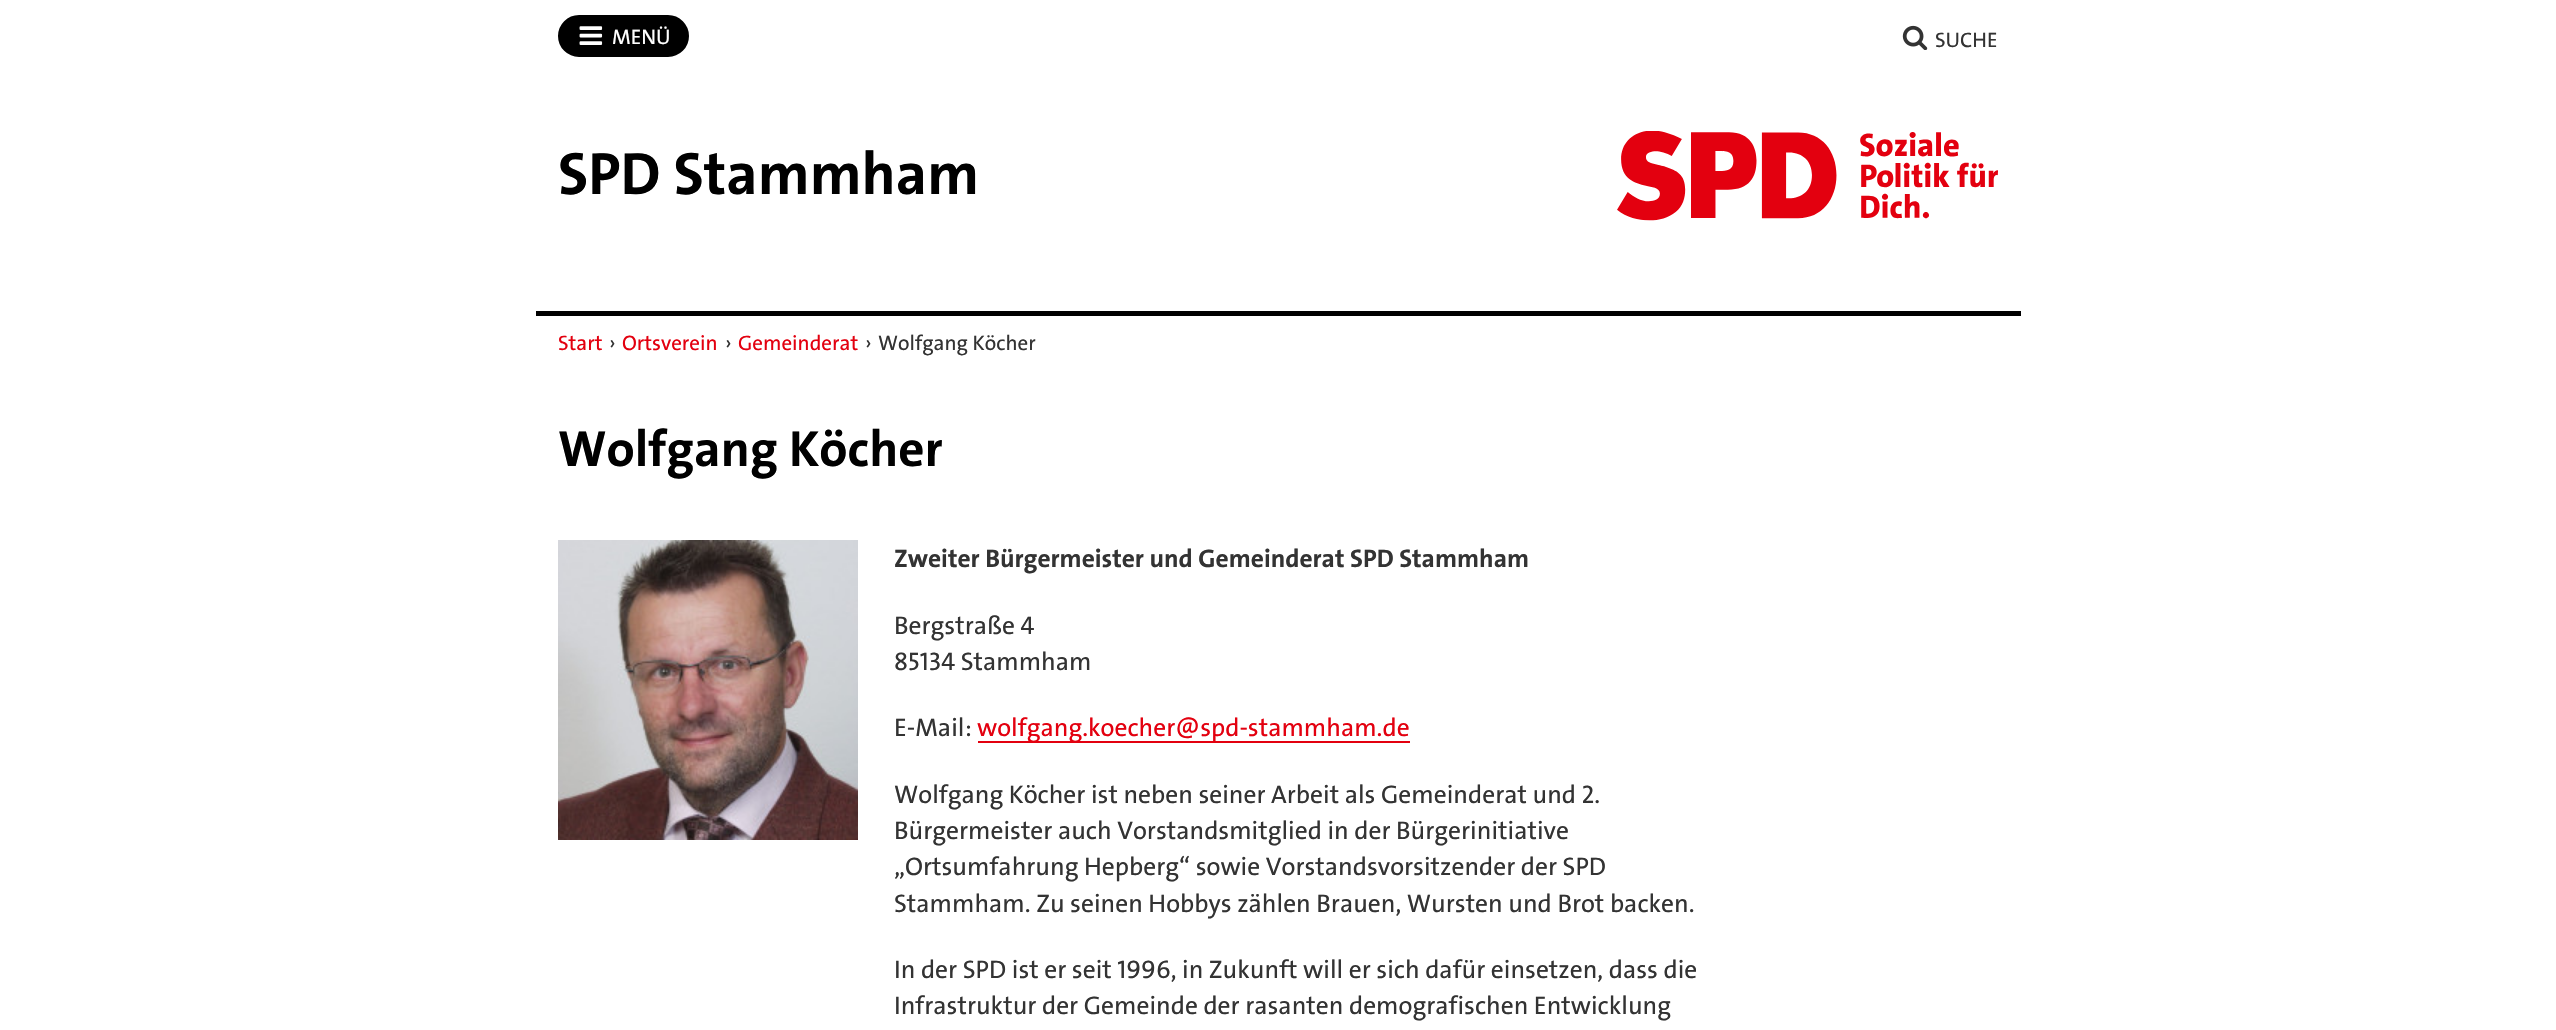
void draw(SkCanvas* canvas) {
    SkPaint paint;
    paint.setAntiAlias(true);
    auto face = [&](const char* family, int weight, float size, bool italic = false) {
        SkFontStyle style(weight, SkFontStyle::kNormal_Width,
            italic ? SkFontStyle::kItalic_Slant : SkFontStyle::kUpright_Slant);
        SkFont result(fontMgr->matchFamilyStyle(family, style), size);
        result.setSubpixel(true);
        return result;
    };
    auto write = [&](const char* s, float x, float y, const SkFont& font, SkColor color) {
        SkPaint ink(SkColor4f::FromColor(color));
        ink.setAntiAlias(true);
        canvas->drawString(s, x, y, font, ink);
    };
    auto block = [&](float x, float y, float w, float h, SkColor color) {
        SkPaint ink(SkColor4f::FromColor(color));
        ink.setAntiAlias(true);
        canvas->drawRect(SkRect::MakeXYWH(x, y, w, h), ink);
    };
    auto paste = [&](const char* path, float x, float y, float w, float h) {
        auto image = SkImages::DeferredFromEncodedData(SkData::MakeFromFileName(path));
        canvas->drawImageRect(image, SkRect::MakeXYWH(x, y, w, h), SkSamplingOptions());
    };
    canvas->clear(SK_ColorWHITE);
    paint.setColor(SK_ColorBLACK);
    canvas->drawRoundRect(SkRect::MakeXYWH(559.5f, 16.5f, 128, 39), 19.5f, 19.5f, paint);
    paint.setStyle(SkPaint::kStroke_Style);
    paint.setStrokeWidth(3);
    canvas->drawRoundRect(SkRect::MakeXYWH(559.5f, 16.5f, 128, 39), 19.5f, 19.5f, paint);
    paste("pic1.png", 579, 26, 24, 19);
    auto kFont1 = face("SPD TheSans", 500, 21);
    write("MENÜ", 612, 44, kFont1, SK_ColorWHITE);
    paste("pic2.png", 1902, 25, 26, 25);
    write("SUCHE", 1935, 47, kFont1, SkColorSetRGB(51, 51, 51));
    auto kFont2 = face("SPD TheSans", 700, 60);
    write("SPD Stammham", 558, 194, kFont2, SK_ColorBLACK);
    paste("pic3.png", 1617, 131, 381, 90);
    block(536, 311, 1485, 5, SK_ColorBLACK);
    write("Start", 558, 350, kFont1, SkColorSetRGB(227, 0, 15));
    write("›", 609, 350, kFont1, SkColorSetRGB(51, 51, 51));
    write("Ortsverein", 622, 350, kFont1, SkColorSetRGB(227, 0, 15));
    write("›", 725, 350, kFont1, SkColorSetRGB(51, 51, 51));
    write("Gemeinderat", 738, 350, kFont1, SkColorSetRGB(227, 0, 15));
    write("›", 865, 350, kFont1, SkColorSetRGB(51, 51, 51));
    write("Wolfgang Köcher", 878, 350, kFont1, SkColorSetRGB(51, 51, 51));
    auto kFont3 = face("SPD TheSans", 700, 51);
    write("Wolfgang Köcher", 558, 466, kFont3, SK_ColorBLACK);
    paste("pic4.png", 558, 540, 300, 300);
    auto kFont4 = face("SPD TheSans", 700, 25.5f);
    write("Zweiter Bürgermeister und Gemeinderat SPD Stammham", 894, 567, kFont4, SkColorSetRGB(51, 51, 51));
    auto kFont5 = face("SPD TheSans", 500, 25.5f);
    write("Bergstraße 4", 894, 634, kFont5, SkColorSetRGB(51, 51, 51));
    write("85134 Stammham", 894, 670, kFont5, SkColorSetRGB(51, 51, 51));
    write("E-Mail:", 894, 736, kFont5, SkColorSetRGB(51, 51, 51));
    block(978, 741, 432, 2, SkColorSetRGB(227, 0, 15));
    write("wolfgang.koecher@spd-stammham.de", 977, 736, kFont5, SkColorSetRGB(227, 0, 15));
    write("Wolfgang Köcher ist neben seiner Arbeit als Gemeinderat und 2.", 894, 803, kFont5, SkColorSetRGB(51, 51, 51));
    write("Bürgermeister auch Vorstandsmitglied in der Bürgerinitiative", 894, 839, kFont5, SkColorSetRGB(51, 51, 51));
    write("„Ortsumfahrung Hepberg“ sowie Vorstandsvorsitzender der SPD", 894, 875, kFont5, SkColorSetRGB(51, 51, 51));
    write("Stammham. Zu seinen Hobbys zählen Brauen, Wursten und Brot backen.", 894, 912, kFont5, SkColorSetRGB(51, 51, 51));
    write("In der SPD ist er seit 1996, in Zukunft will er sich dafür einsetzen, dass die", 894, 978, kFont5, SkColorSetRGB(51, 51, 51));
    write("Infrastruktur der Gemeinde der rasanten demografischen Entwicklung", 894, 1014, kFont5, SkColorSetRGB(51, 51, 51));
}
